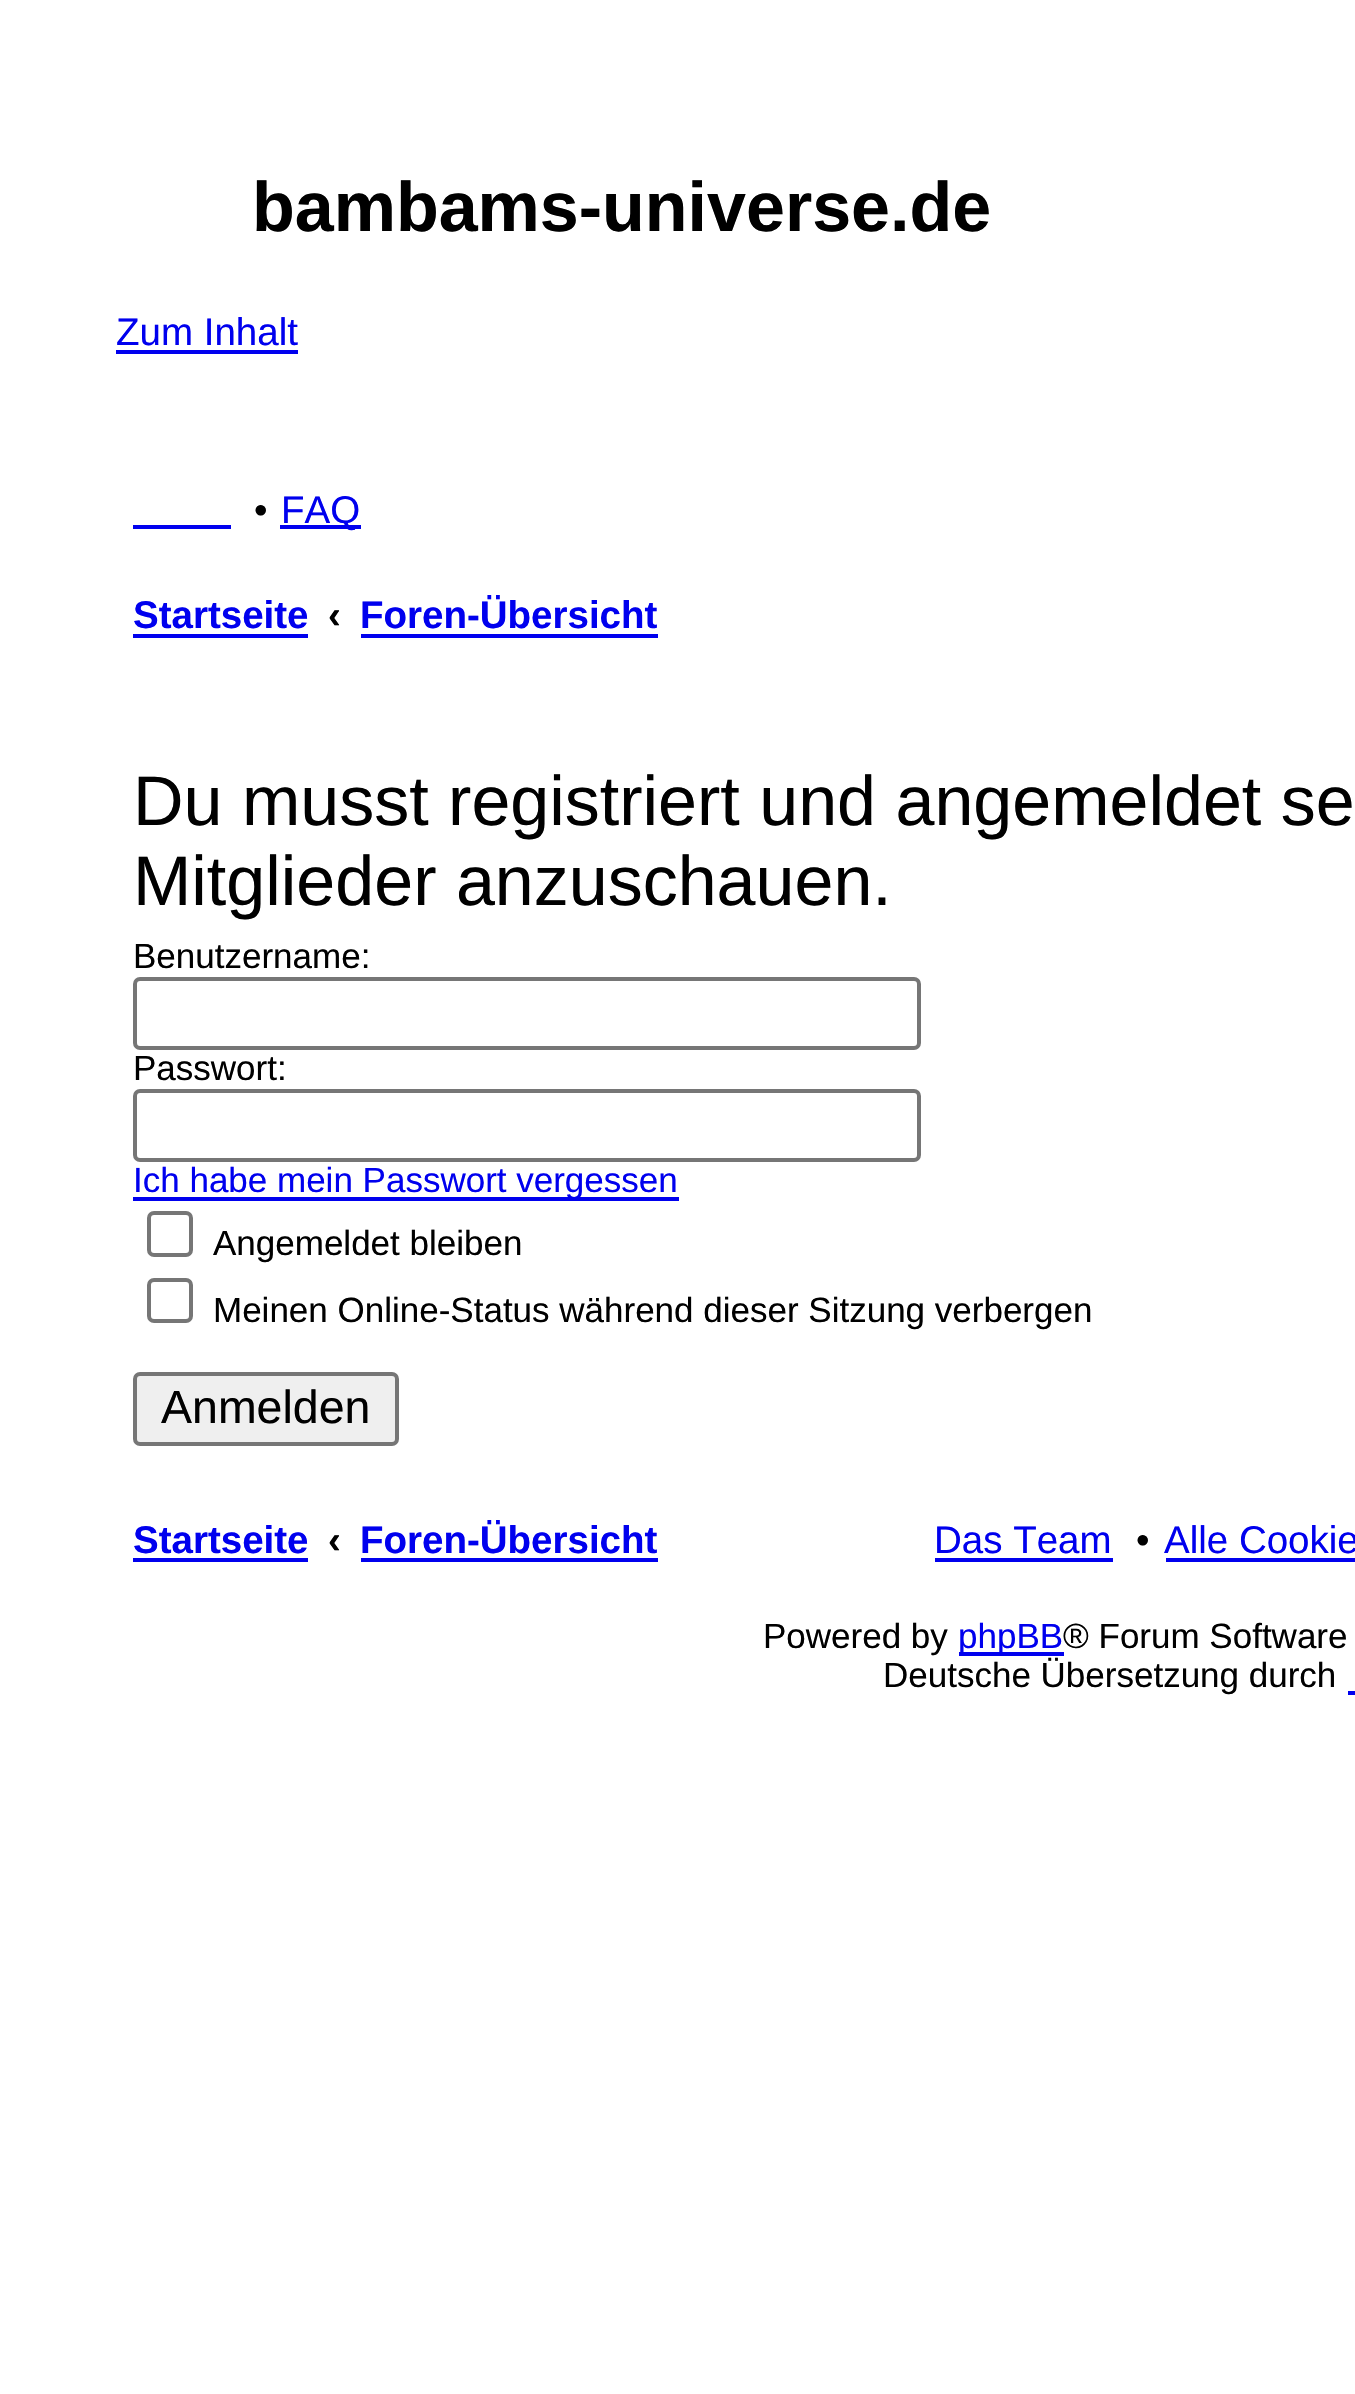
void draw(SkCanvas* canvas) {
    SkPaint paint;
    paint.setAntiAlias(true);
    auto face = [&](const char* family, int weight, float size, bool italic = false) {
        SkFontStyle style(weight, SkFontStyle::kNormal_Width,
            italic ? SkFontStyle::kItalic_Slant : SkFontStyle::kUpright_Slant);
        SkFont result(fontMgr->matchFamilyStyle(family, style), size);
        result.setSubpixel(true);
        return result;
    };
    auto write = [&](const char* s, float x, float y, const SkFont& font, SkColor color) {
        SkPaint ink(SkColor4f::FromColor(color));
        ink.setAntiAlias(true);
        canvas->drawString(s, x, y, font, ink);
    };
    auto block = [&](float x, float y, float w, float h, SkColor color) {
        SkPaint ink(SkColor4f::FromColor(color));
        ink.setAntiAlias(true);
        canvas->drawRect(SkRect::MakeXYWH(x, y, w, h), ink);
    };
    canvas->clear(SK_ColorWHITE);
    auto kFont1 = face("Liberation Sans", 700, 70);
    write("bambams-universe.de", 252, 231, kFont1, SK_ColorBLACK);
    auto kFont2 = face("Liberation Sans", 400, 38.5f);
    write("Zum Inhalt", 116, 345, kFont2, SkColorSetRGB(0, 0, 238));
    block(116, 350, 182, 4, SkColorSetRGB(0, 0, 238));
    block(133, 525, 98, 4, SkColorSetRGB(0, 0, 238));
    write("•", 254, 523, kFont2, SK_ColorBLACK);
    block(280, 525, 81, 4, SkColorSetRGB(0, 0, 238));
    write("FAQ", 281, 523, kFont2, SkColorSetRGB(0, 0, 238));
    auto kFont3 = face("Liberation Sans", 700, 38.5f);
    write("Startseite", 133, 628, kFont3, SkColorSetRGB(0, 0, 238));
    block(133, 634, 175, 4, SkColorSetRGB(0, 0, 238));
    write("‹", 328, 628, kFont3, SK_ColorBLACK);
    write("Foren-Übersicht", 360, 628, kFont3, SkColorSetRGB(0, 0, 238));
    block(361, 634, 297, 4, SkColorSetRGB(0, 0, 238));
    auto kFont4 = face("Liberation Sans", 400, 70);
    write("Du musst registriert und angemeldet se", 133, 825, kFont4, SK_ColorBLACK);
    write("Mitglieder anzuschauen.", 133, 905, kFont4, SK_ColorBLACK);
    auto kFont5 = face("Liberation Sans", 400, 35);
    write("Benutzername:", 133, 968, kFont5, SK_ColorBLACK);
    paint.setStyle(SkPaint::kStroke_Style);
    paint.setStrokeWidth(4);
    paint.setColor(SkColorSetRGB(118, 118, 118));
    canvas->drawRoundRect(SkRect::MakeXYWH(135, 979, 784, 69), 5, 5, paint);
    write("Passwort:", 133, 1080, kFont5, SK_ColorBLACK);
    canvas->drawRoundRect(SkRect::MakeXYWH(135, 1091, 784, 69), 5, 5, paint);
    block(133, 1197, 546, 4, SkColorSetRGB(0, 0, 238));
    write("Ich habe mein Passwort vergessen", 133, 1192, kFont5, SkColorSetRGB(0, 0, 238));
    canvas->drawRoundRect(SkRect::MakeXYWH(149, 1213, 42, 42), 5, 5, paint);
    write("Angemeldet bleiben", 213, 1255, kFont5, SK_ColorBLACK);
    canvas->drawRoundRect(SkRect::MakeXYWH(149, 1280, 42, 41), 5, 5, paint);
    write("Meinen Online-Status während dieser Sitzung verbergen", 213, 1322, kFont5, SK_ColorBLACK);
    paint.setStyle(SkPaint::kFill_Style);
    paint.setColor(SkColorSetRGB(239, 239, 239));
    canvas->drawRoundRect(SkRect::MakeXYWH(135, 1374, 262, 70), 5, 5, paint);
    paint.setStyle(SkPaint::kStroke_Style);
    paint.setColor(SkColorSetRGB(118, 118, 118));
    canvas->drawRoundRect(SkRect::MakeXYWH(135, 1374, 262, 70), 5, 5, paint);
    auto kFont6 = face("Liberation Sans", 400, 46.5f);
    write("Anmelden", 161, 1423, kFont6, SK_ColorBLACK);
    write("Startseite", 133, 1553, kFont3, SkColorSetRGB(0, 0, 238));
    block(133, 1558, 175, 4, SkColorSetRGB(0, 0, 238));
    write("‹", 328, 1553, kFont3, SK_ColorBLACK);
    write("Foren-Übersicht", 360, 1553, kFont3, SkColorSetRGB(0, 0, 238));
    block(361, 1558, 297, 4, SkColorSetRGB(0, 0, 238));
    write("Das Team", 934, 1553, kFont2, SkColorSetRGB(0, 0, 238));
    block(935, 1558, 178, 4, SkColorSetRGB(0, 0, 238));
    write("•", 1136, 1553, kFont2, SK_ColorBLACK);
    write("Alle Cookie", 1164, 1553, kFont2, SkColorSetRGB(0, 0, 238));
    block(1166, 1558, 189, 4, SkColorSetRGB(0, 0, 238));
    write("Powered by", 763, 1648, kFont5, SK_ColorBLACK);
    block(959, 1652, 105, 4, SkColorSetRGB(0, 0, 238));
    write("phpBB", 958, 1648, kFont5, SkColorSetRGB(0, 0, 238));
    write("® Forum Software", 1063, 1648, kFont5, SK_ColorBLACK);
    write("Deutsche Übersetzung durch", 883, 1687, kFont5, SK_ColorBLACK);
    block(1348, 1691, 7, 4, SkColorSetRGB(0, 0, 238));
}
